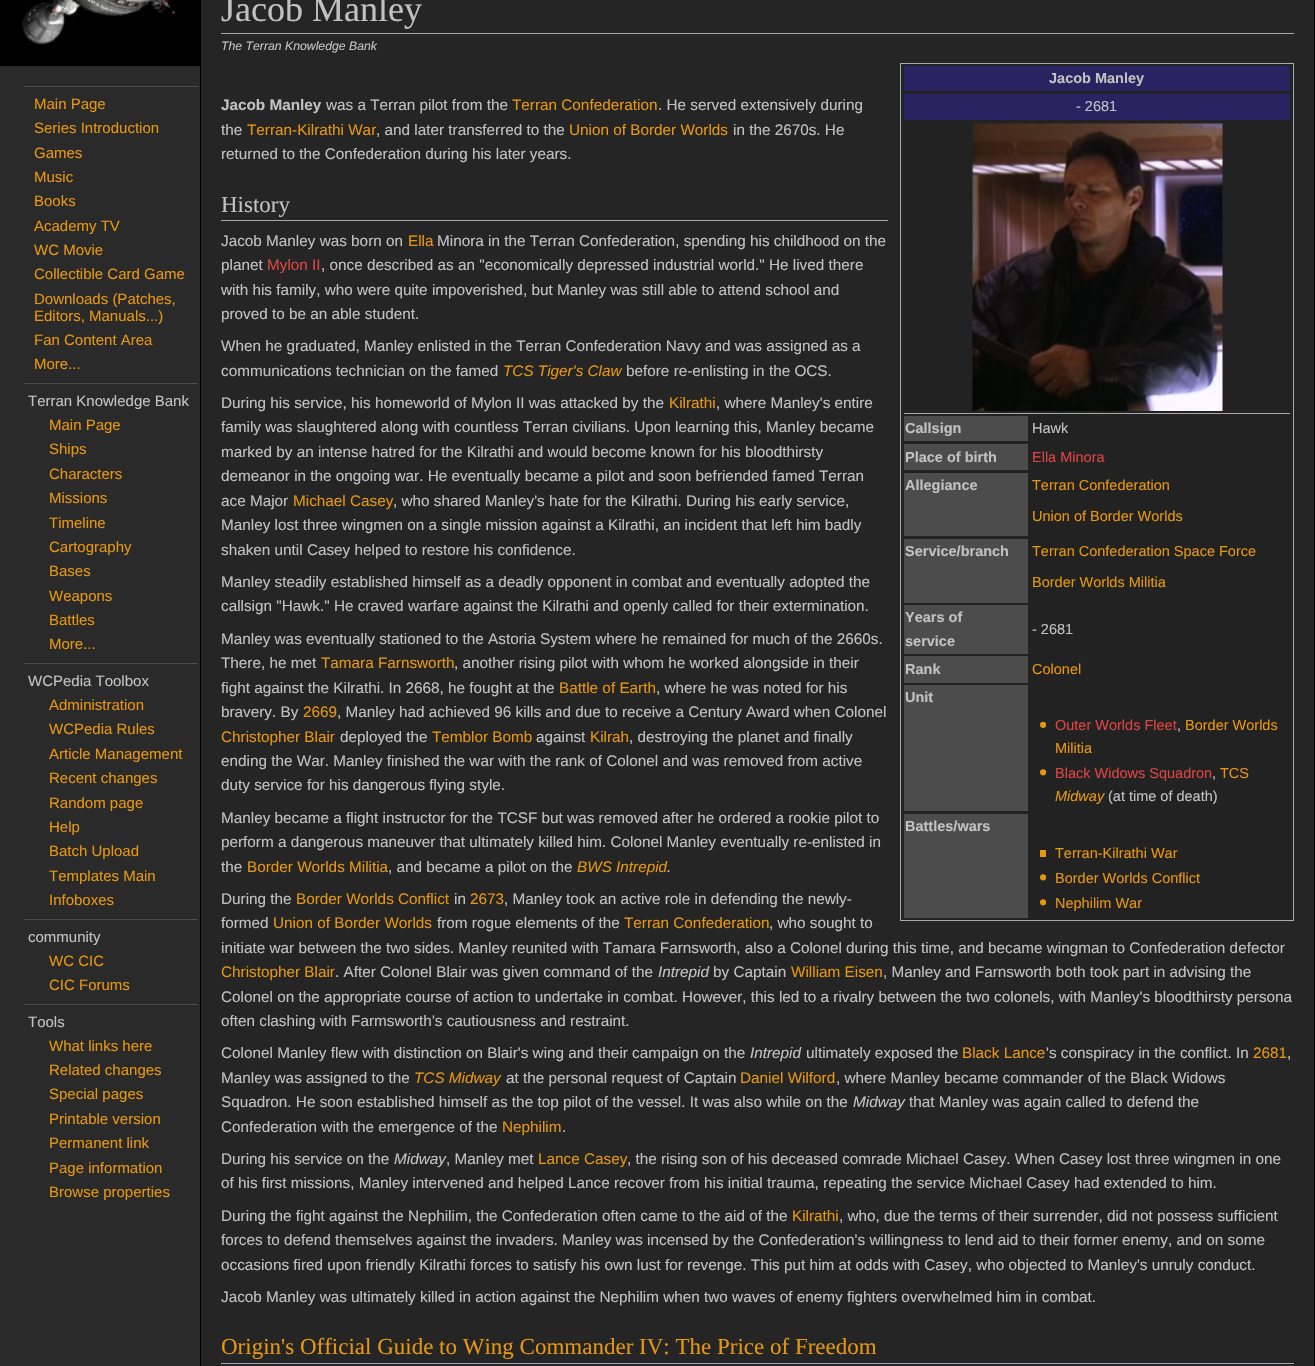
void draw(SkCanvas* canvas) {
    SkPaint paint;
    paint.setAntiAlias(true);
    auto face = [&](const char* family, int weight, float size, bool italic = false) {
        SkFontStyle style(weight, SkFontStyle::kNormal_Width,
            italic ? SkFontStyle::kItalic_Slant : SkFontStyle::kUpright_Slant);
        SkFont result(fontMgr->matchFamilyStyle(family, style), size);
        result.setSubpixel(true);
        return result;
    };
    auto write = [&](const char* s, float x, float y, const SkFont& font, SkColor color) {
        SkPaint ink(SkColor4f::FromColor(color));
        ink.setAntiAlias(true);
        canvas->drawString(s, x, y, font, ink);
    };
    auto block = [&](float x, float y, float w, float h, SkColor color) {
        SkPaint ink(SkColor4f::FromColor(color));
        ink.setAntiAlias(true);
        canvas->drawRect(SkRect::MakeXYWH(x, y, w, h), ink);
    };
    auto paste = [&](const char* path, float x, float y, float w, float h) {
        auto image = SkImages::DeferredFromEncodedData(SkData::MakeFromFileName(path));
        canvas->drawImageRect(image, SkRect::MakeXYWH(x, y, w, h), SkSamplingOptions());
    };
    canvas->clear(SkColorSetRGB(42, 42, 42));
    block(0, 0, 200, 66, SK_ColorBLACK);
    paste("pic1.png", 21, 0, 155, 45);
    block(24, 86, 174, 1, SkColorSetRGB(76, 76, 76));
    auto kFont1 = face("Liberation Sans", 400, 15);
    write("Main Page", 34, 109, kFont1, SkColorSetRGB(230, 151, 16));
    write("Series Introduction", 34, 133, kFont1, SkColorSetRGB(230, 151, 16));
    write("Games", 34, 158, kFont1, SkColorSetRGB(230, 151, 16));
    write("Music", 34, 182, kFont1, SkColorSetRGB(230, 151, 16));
    write("Books", 34, 206, kFont1, SkColorSetRGB(230, 151, 16));
    write("Academy TV", 34, 231, kFont1, SkColorSetRGB(230, 151, 16));
    write("WC Movie", 34, 255, kFont1, SkColorSetRGB(230, 151, 16));
    write("Collectible Card Game", 34, 279, kFont1, SkColorSetRGB(230, 151, 16));
    write("Downloads (Patches,", 34, 304, kFont1, SkColorSetRGB(230, 151, 16));
    write("Editors, Manuals...)", 34, 321, kFont1, SkColorSetRGB(230, 151, 16));
    write("Fan Content Area", 34, 345, kFont1, SkColorSetRGB(230, 151, 16));
    write("More...", 34, 369, kFont1, SkColorSetRGB(230, 151, 16));
    block(24, 383, 174, 1, SkColorSetRGB(76, 76, 76));
    write("Terran Knowledge Bank", 28, 406, kFont1, SkColorSetRGB(193, 193, 193));
    write("Main Page", 49, 430, kFont1, SkColorSetRGB(230, 151, 16));
    write("Ships", 49, 454, kFont1, SkColorSetRGB(230, 151, 16));
    write("Characters", 49, 479, kFont1, SkColorSetRGB(230, 151, 16));
    write("Missions", 49, 503, kFont1, SkColorSetRGB(230, 151, 16));
    write("Timeline", 49, 528, kFont1, SkColorSetRGB(230, 151, 16));
    write("Cartography", 49, 552, kFont1, SkColorSetRGB(230, 151, 16));
    write("Bases", 49, 576, kFont1, SkColorSetRGB(230, 151, 16));
    write("Weapons", 49, 601, kFont1, SkColorSetRGB(230, 151, 16));
    write("Battles", 49, 625, kFont1, SkColorSetRGB(230, 151, 16));
    write("More...", 49, 649, kFont1, SkColorSetRGB(230, 151, 16));
    block(24, 663, 174, 1, SkColorSetRGB(76, 76, 76));
    write("WCPedia Toolbox", 28, 686, kFont1, SkColorSetRGB(193, 193, 193));
    write("Administration", 49, 710, kFont1, SkColorSetRGB(230, 151, 16));
    write("WCPedia Rules", 49, 734, kFont1, SkColorSetRGB(230, 151, 16));
    write("Article Management", 49, 759, kFont1, SkColorSetRGB(230, 151, 16));
    write("Recent changes", 49, 783, kFont1, SkColorSetRGB(230, 151, 16));
    write("Random page", 49, 808, kFont1, SkColorSetRGB(230, 151, 16));
    write("Help", 49, 832, kFont1, SkColorSetRGB(230, 151, 16));
    write("Batch Upload", 49, 856, kFont1, SkColorSetRGB(230, 151, 16));
    write("Templates Main", 49, 881, kFont1, SkColorSetRGB(230, 151, 16));
    write("Infoboxes", 49, 905, kFont1, SkColorSetRGB(230, 151, 16));
    block(24, 919, 174, 1, SkColorSetRGB(76, 76, 76));
    write("community", 28, 942, kFont1, SkColorSetRGB(193, 193, 193));
    write("WC CIC", 49, 966, kFont1, SkColorSetRGB(230, 151, 16));
    write("CIC Forums", 49, 990, kFont1, SkColorSetRGB(230, 151, 16));
    block(24, 1004, 174, 1, SkColorSetRGB(76, 76, 76));
    write("Tools", 28, 1027, kFont1, SkColorSetRGB(193, 193, 193));
    write("What links here", 49, 1051, kFont1, SkColorSetRGB(230, 151, 16));
    write("Related changes", 49, 1075, kFont1, SkColorSetRGB(230, 151, 16));
    write("Special pages", 49, 1099, kFont1, SkColorSetRGB(230, 151, 16));
    write("Printable version", 49, 1124, kFont1, SkColorSetRGB(230, 151, 16));
    write("Permanent link", 49, 1148, kFont1, SkColorSetRGB(230, 151, 16));
    write("Page information", 49, 1173, kFont1, SkColorSetRGB(230, 151, 16));
    write("Browse properties", 49, 1197, kFont1, SkColorSetRGB(230, 151, 16));
    paint.setColor(SkColorSetRGB(37, 37, 37));
    canvas->drawRect(SkRect::MakeXYWH(200.5f, -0.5f, 1114, 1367), paint);
    paint.setStyle(SkPaint::kStroke_Style);
    paint.setStrokeWidth(1);
    paint.setColor(SK_ColorBLACK);
    canvas->drawRect(SkRect::MakeXYWH(200.5f, -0.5f, 1114, 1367), paint);
    block(221, 33, 1073, 1, SkColorSetRGB(162, 169, 177));
    auto kFont2 = face("Liberation Serif", 400, 36);
    write("Jacob Manley", 221, 21, kFont2, SkColorSetRGB(193, 193, 193));
    auto kFont3 = face("Liberation Sans", 400, 12.25f, true);
    write("The Terran Knowledge Bank", 221, 50, kFont3, SkColorSetRGB(193, 193, 193));
    auto kFont4 = face("Liberation Sans", 700, 15.3f);
    write("Jacob Manley", 221, 110, kFont4, SkColorSetRGB(193, 193, 193));
    auto kFont5 = face("Liberation Sans", 400, 15.3f);
    write("was a Terran pilot from the", 326, 110, kFont5, SkColorSetRGB(193, 193, 193));
    write("Terran Confederation", 512, 110, kFont5, SkColorSetRGB(230, 151, 16));
    write(". He served extensively during", 658, 110, kFont5, SkColorSetRGB(193, 193, 193));
    write("the", 221, 135, kFont5, SkColorSetRGB(193, 193, 193));
    write("Terran-Kilrathi War", 247, 135, kFont5, SkColorSetRGB(230, 151, 16));
    write(", and later transferred to the", 376, 135, kFont5, SkColorSetRGB(193, 193, 193));
    write("Union of Border Worlds", 569, 135, kFont5, SkColorSetRGB(230, 151, 16));
    write("in the 2670s. He", 733, 135, kFont5, SkColorSetRGB(193, 193, 193));
    write("returned to the Confederation during his later years.", 221, 159, kFont5, SkColorSetRGB(193, 193, 193));
    paint.setStyle(SkPaint::kFill_Style);
    paint.setColor(SkColorSetRGB(34, 34, 34));
    canvas->drawRect(SkRect::MakeXYWH(900.5f, 63.5f, 393, 857), paint);
    paint.setStyle(SkPaint::kStroke_Style);
    paint.setColor(SkColorSetRGB(170, 170, 170));
    canvas->drawRect(SkRect::MakeXYWH(900.5f, 63.5f, 393, 857), paint);
    block(904, 66, 386, 25, SkColorSetRGB(41, 36, 97));
    auto kFont6 = face("Liberation Sans", 700, 14.5f);
    write("Jacob Manley", 1049, 83, kFont6, SkColorSetRGB(193, 193, 193));
    block(904, 94, 386, 26, SkColorSetRGB(41, 36, 97));
    auto kFont7 = face("Liberation Sans", 400, 14.5f);
    write("- 2681", 1076, 111, kFont7, SkColorSetRGB(193, 193, 193));
    block(904, 413, 386, 1, SkColorSetRGB(170, 170, 170));
    paste("pic2.png", 972, 123, 251, 288);
    block(904, 416, 124, 25, SkColorSetRGB(76, 76, 76));
    write("Callsign", 905, 433, kFont6, SkColorSetRGB(193, 193, 193));
    write("Hawk", 1032, 433, kFont7, SkColorSetRGB(193, 193, 193));
    block(904, 444, 124, 26, SkColorSetRGB(76, 76, 76));
    write("Place of birth", 905, 462, kFont6, SkColorSetRGB(193, 193, 193));
    write("Ella Minora", 1032, 462, kFont7, SkColorSetRGB(221, 68, 68));
    block(904, 473, 124, 63, SkColorSetRGB(76, 76, 76));
    write("Allegiance", 905, 490, kFont6, SkColorSetRGB(193, 193, 193));
    write("Terran Confederation", 1032, 490, kFont7, SkColorSetRGB(230, 151, 16));
    write("Union of Border Worlds", 1032, 521, kFont7, SkColorSetRGB(230, 151, 16));
    block(904, 539, 124, 64, SkColorSetRGB(76, 76, 76));
    write("Service/branch", 905, 556, kFont6, SkColorSetRGB(193, 193, 193));
    write("Terran Confederation Space Force", 1032, 556, kFont7, SkColorSetRGB(230, 151, 16));
    write("Border Worlds Militia", 1032, 587, kFont7, SkColorSetRGB(230, 151, 16));
    block(904, 605, 124, 49, SkColorSetRGB(76, 76, 76));
    write("Years of", 905, 622, kFont6, SkColorSetRGB(193, 193, 193));
    write("service", 905, 646, kFont6, SkColorSetRGB(193, 193, 193));
    write("- 2681", 1032, 634, kFont7, SkColorSetRGB(193, 193, 193));
    block(904, 656, 124, 27, SkColorSetRGB(76, 76, 76));
    write("Rank", 905, 674, kFont6, SkColorSetRGB(193, 193, 193));
    write("Colonel", 1032, 674, kFont7, SkColorSetRGB(230, 151, 16));
    block(904, 685, 124, 126, SkColorSetRGB(76, 76, 76));
    write("Unit", 905, 702, kFont6, SkColorSetRGB(193, 193, 193));
    paste("pic3.png", 1040, 721, 6, 7);
    write("Outer Worlds Fleet", 1055, 730, kFont7, SkColorSetRGB(221, 68, 68));
    write(",", 1177, 730, kFont7, SkColorSetRGB(193, 193, 193));
    write("Border Worlds", 1185, 730, kFont7, SkColorSetRGB(230, 151, 16));
    write("Militia", 1055, 753, kFont7, SkColorSetRGB(230, 151, 16));
    paste("pic4.png", 1040, 769, 6, 7);
    write("Black Widows Squadron", 1055, 778, kFont7, SkColorSetRGB(221, 68, 68));
    write(",", 1212, 778, kFont7, SkColorSetRGB(193, 193, 193));
    write("TCS", 1220, 778, kFont7, SkColorSetRGB(230, 151, 16));
    auto kFont8 = face("Liberation Sans", 400, 14.5f, true);
    write("Midway", 1055, 801, kFont8, SkColorSetRGB(230, 151, 16));
    write("(at time of death)", 1108, 801, kFont7, SkColorSetRGB(193, 193, 193));
    block(904, 814, 124, 104, SkColorSetRGB(76, 76, 76));
    write("Battles/wars", 905, 831, kFont6, SkColorSetRGB(193, 193, 193));
    block(1040, 850, 6, 7, SkColorSetRGB(230, 151, 16));
    write("Terran-Kilrathi War", 1055, 858, kFont7, SkColorSetRGB(230, 151, 16));
    paste("pic4.png", 1040, 874, 6, 7);
    write("Border Worlds Conflict", 1055, 883, kFont7, SkColorSetRGB(230, 151, 16));
    paste("pic4.png", 1040, 899, 6, 7);
    write("Nephilim War", 1055, 908, kFont7, SkColorSetRGB(230, 151, 16));
    block(221, 220, 667, 1, SkColorSetRGB(162, 169, 177));
    auto kFont9 = face("Liberation Serif", 400, 23);
    write("History", 221, 212, kFont9, SkColorSetRGB(193, 193, 193));
    write("Jacob Manley was born on", 221, 246, kFont5, SkColorSetRGB(193, 193, 193));
    write("Ella", 408, 246, kFont5, SkColorSetRGB(230, 151, 16));
    write("Minora in the Terran Confederation, spending his childhood on the", 437, 246, kFont5, SkColorSetRGB(193, 193, 193));
    write("planet", 221, 270, kFont5, SkColorSetRGB(193, 193, 193));
    write("Mylon II", 267, 270, kFont5, SkColorSetRGB(221, 68, 68));
    write(", once described as an \"economically depressed industrial world.\" He lived there", 321, 270, kFont5, SkColorSetRGB(193, 193, 193));
    write("with his family, who were quite impoverished, but Manley was still able to attend school and", 221, 295, kFont5, SkColorSetRGB(193, 193, 193));
    write("proved to be an able student.", 221, 319, kFont5, SkColorSetRGB(193, 193, 193));
    write("When he graduated, Manley enlisted in the Terran Confederation Navy and was assigned as a", 221, 351, kFont5, SkColorSetRGB(193, 193, 193));
    write("communications technician on the famed", 221, 376, kFont5, SkColorSetRGB(193, 193, 193));
    auto kFont10 = face("Liberation Sans", 400, 15.3f, true);
    write("TCS Tiger's Claw", 503, 376, kFont10, SkColorSetRGB(230, 151, 16));
    write("before re-enlisting in the OCS.", 626, 376, kFont5, SkColorSetRGB(193, 193, 193));
    write("During his service, his homeworld of Mylon II was attacked by the", 221, 408, kFont5, SkColorSetRGB(193, 193, 193));
    write("Kilrathi", 669, 408, kFont5, SkColorSetRGB(230, 151, 16));
    write(", where Manley's entire", 716, 408, kFont5, SkColorSetRGB(193, 193, 193));
    write("family was slaughtered along with countless Terran civilians. Upon learning this, Manley became", 221, 432, kFont5, SkColorSetRGB(193, 193, 193));
    write("marked by an intense hatred for the Kilrathi and would become known for his bloodthirsty", 221, 457, kFont5, SkColorSetRGB(193, 193, 193));
    write("demeanor in the ongoing war. He eventually became a pilot and soon befriended famed Terran", 221, 481, kFont5, SkColorSetRGB(193, 193, 193));
    write("ace Major", 221, 506, kFont5, SkColorSetRGB(193, 193, 193));
    write("Michael Casey", 293, 506, kFont5, SkColorSetRGB(230, 151, 16));
    write(", who shared Manley's hate for the Kilrathi. During his early service,", 393, 506, kFont5, SkColorSetRGB(193, 193, 193));
    write("Manley lost three wingmen on a single mission against a Kilrathi, an incident that left him badly", 221, 530, kFont5, SkColorSetRGB(193, 193, 193));
    write("shaken until Casey helped to restore his confidence.", 221, 555, kFont5, SkColorSetRGB(193, 193, 193));
    write("Manley steadily established himself as a deadly opponent in combat and eventually adopted the", 221, 587, kFont5, SkColorSetRGB(193, 193, 193));
    write("callsign \"Hawk.\" He craved warfare against the Kilrathi and openly called for their extermination.", 221, 611, kFont5, SkColorSetRGB(193, 193, 193));
    write("Manley was eventually stationed to the Astoria System where he remained for much of the 2660s.", 221, 644, kFont5, SkColorSetRGB(193, 193, 193));
    write("There, he met", 221, 668, kFont5, SkColorSetRGB(193, 193, 193));
    write("Tamara Farnsworth", 321, 668, kFont5, SkColorSetRGB(230, 151, 16));
    write(", another rising pilot with whom he worked alongside in their", 454, 668, kFont5, SkColorSetRGB(193, 193, 193));
    write("fight against the Kilrathi. In 2668, he fought at the", 221, 693, kFont5, SkColorSetRGB(193, 193, 193));
    write("Battle of Earth", 559, 693, kFont5, SkColorSetRGB(230, 151, 16));
    write(", where he was noted for his", 656, 693, kFont5, SkColorSetRGB(193, 193, 193));
    write("bravery. By", 221, 717, kFont5, SkColorSetRGB(193, 193, 193));
    write("2669", 303, 717, kFont5, SkColorSetRGB(230, 151, 16));
    write(", Manley had achieved 96 kills and due to receive a Century Award when Colonel", 337, 717, kFont5, SkColorSetRGB(193, 193, 193));
    write("Christopher Blair", 221, 742, kFont5, SkColorSetRGB(230, 151, 16));
    write("deployed the", 340, 742, kFont5, SkColorSetRGB(193, 193, 193));
    write("Temblor Bomb", 432, 742, kFont5, SkColorSetRGB(230, 151, 16));
    write("against", 536, 742, kFont5, SkColorSetRGB(193, 193, 193));
    write("Kilrah", 590, 742, kFont5, SkColorSetRGB(230, 151, 16));
    write(", destroying the planet and finally", 629, 742, kFont5, SkColorSetRGB(193, 193, 193));
    write("ending the War. Manley finished the war with the rank of Colonel and was removed from active", 221, 766, kFont5, SkColorSetRGB(193, 193, 193));
    write("duty service for his dangerous flying style.", 221, 790, kFont5, SkColorSetRGB(193, 193, 193));
    write("Manley became a flight instructor for the TCSF but was removed after he ordered a rookie pilot to", 221, 823, kFont5, SkColorSetRGB(193, 193, 193));
    write("perform a dangerous maneuver that ultimately killed him. Colonel Manley eventually re-enlisted in", 221, 847, kFont5, SkColorSetRGB(193, 193, 193));
    write("the", 221, 872, kFont5, SkColorSetRGB(193, 193, 193));
    write("Border Worlds Militia", 247, 872, kFont5, SkColorSetRGB(230, 151, 16));
    write(", and became a pilot on the", 388, 872, kFont5, SkColorSetRGB(193, 193, 193));
    write("BWS Intrepid", 577, 872, kFont10, SkColorSetRGB(230, 151, 16));
    write(".", 667, 872, kFont10, SkColorSetRGB(193, 193, 193));
    write("During the", 221, 904, kFont5, SkColorSetRGB(193, 193, 193));
    write("Border Worlds Conflict", 296, 904, kFont5, SkColorSetRGB(230, 151, 16));
    write("in", 454, 904, kFont5, SkColorSetRGB(193, 193, 193));
    write("2673", 470, 904, kFont5, SkColorSetRGB(230, 151, 16));
    write(", Manley took an active role in defending the newly-", 504, 904, kFont5, SkColorSetRGB(193, 193, 193));
    write("formed", 221, 928, kFont5, SkColorSetRGB(193, 193, 193));
    write("Union of Border Worlds", 273, 928, kFont5, SkColorSetRGB(230, 151, 16));
    write("from rogue elements of the", 437, 928, kFont5, SkColorSetRGB(193, 193, 193));
    write("Terran Confederation", 624, 928, kFont5, SkColorSetRGB(230, 151, 16));
    write(", who sought to", 769, 928, kFont5, SkColorSetRGB(193, 193, 193));
    write("initiate war between the two sides. Manley reunited with Tamara Farnsworth, also a Colonel during this time, and became wingman to Confederation defector", 221, 953, kFont5, SkColorSetRGB(193, 193, 193));
    write("Christopher Blair", 221, 977, kFont5, SkColorSetRGB(230, 151, 16));
    write(". After Colonel Blair was given command of the", 335, 977, kFont5, SkColorSetRGB(193, 193, 193));
    write("Intrepid", 658, 977, kFont10, SkColorSetRGB(193, 193, 193));
    write("by Captain", 713, 977, kFont5, SkColorSetRGB(193, 193, 193));
    write("William Eisen", 791, 977, kFont5, SkColorSetRGB(230, 151, 16));
    write(", Manley and Farnsworth both took part in advising the", 883, 977, kFont5, SkColorSetRGB(193, 193, 193));
    write("Colonel on the appropriate course of action to undertake in combat. However, this led to a rivalry between the two colonels, with Manley's bloodthirsty persona", 221, 1002, kFont5, SkColorSetRGB(193, 193, 193));
    write("often clashing with Farmsworth's cautiousness and restraint.", 221, 1026, kFont5, SkColorSetRGB(193, 193, 193));
    write("Colonel Manley flew with distinction on Blair's wing and their campaign on the", 221, 1058, kFont5, SkColorSetRGB(193, 193, 193));
    write("Intrepid", 750, 1058, kFont10, SkColorSetRGB(193, 193, 193));
    write("ultimately exposed the", 806, 1058, kFont5, SkColorSetRGB(193, 193, 193));
    write("Black Lance", 962, 1058, kFont5, SkColorSetRGB(230, 151, 16));
    write("'s conspiracy in the conflict. In", 1046, 1058, kFont5, SkColorSetRGB(193, 193, 193));
    write("2681", 1253, 1058, kFont5, SkColorSetRGB(230, 151, 16));
    write(",", 1287, 1058, kFont5, SkColorSetRGB(193, 193, 193));
    write("Manley was assigned to the", 221, 1083, kFont5, SkColorSetRGB(193, 193, 193));
    write("TCS Midway", 414, 1083, kFont10, SkColorSetRGB(230, 151, 16));
    write("at the personal request of Captain", 506, 1083, kFont5, SkColorSetRGB(193, 193, 193));
    write("Daniel Wilford", 740, 1083, kFont5, SkColorSetRGB(230, 151, 16));
    write(", where Manley became commander of the Black Widows", 836, 1083, kFont5, SkColorSetRGB(193, 193, 193));
    write("Squadron. He soon established himself as the top pilot of the vessel. It was also while on the", 221, 1107, kFont5, SkColorSetRGB(193, 193, 193));
    write("Midway", 853, 1107, kFont10, SkColorSetRGB(193, 193, 193));
    write("that Manley was again called to defend the", 909, 1107, kFont5, SkColorSetRGB(193, 193, 193));
    write("Confederation with the emergence of the", 221, 1132, kFont5, SkColorSetRGB(193, 193, 193));
    write("Nephilim", 502, 1132, kFont5, SkColorSetRGB(230, 151, 16));
    write(".", 562, 1132, kFont5, SkColorSetRGB(193, 193, 193));
    write("During his service on the", 221, 1164, kFont5, SkColorSetRGB(193, 193, 193));
    write("Midway", 394, 1164, kFont10, SkColorSetRGB(193, 193, 193));
    write(", Manley met", 446, 1164, kFont5, SkColorSetRGB(193, 193, 193));
    write("Lance Casey", 538, 1164, kFont5, SkColorSetRGB(230, 151, 16));
    write(", the rising son of his deceased comrade Michael Casey. When Casey lost three wingmen in one", 627, 1164, kFont5, SkColorSetRGB(193, 193, 193));
    write("of his first missions, Manley intervened and helped Lance recover from his initial trauma, repeating the service Michael Casey had extended to him.", 221, 1188, kFont5, SkColorSetRGB(193, 193, 193));
    write("During the fight against the Nephilim, the Confederation often came to the aid of the", 221, 1221, kFont5, SkColorSetRGB(193, 193, 193));
    write("Kilrathi", 792, 1221, kFont5, SkColorSetRGB(230, 151, 16));
    write(", who, due the terms of their surrender, did not possess sufficient", 839, 1221, kFont5, SkColorSetRGB(193, 193, 193));
    write("forces to defend themselves against the invaders. Manley was incensed by the Confederation's willingness to lend aid to their former enemy, and on some", 221, 1245, kFont5, SkColorSetRGB(193, 193, 193));
    write("occasions fired upon friendly Kilrathi forces to satisfy his own lust for revenge. This put him at odds with Casey, who objected to Manley's unruly conduct.", 221, 1270, kFont5, SkColorSetRGB(193, 193, 193));
    write("Jacob Manley was ultimately killed in action against the Nephilim when two waves of enemy fighters overwhelmed him in combat.", 221, 1302, kFont5, SkColorSetRGB(193, 193, 193));
    block(221, 1363, 1073, 1, SkColorSetRGB(162, 169, 177));
    write("Origin's Official Guide to Wing Commander IV: The Price of Freedom", 221, 1354, kFont9, SkColorSetRGB(230, 151, 16));
}
